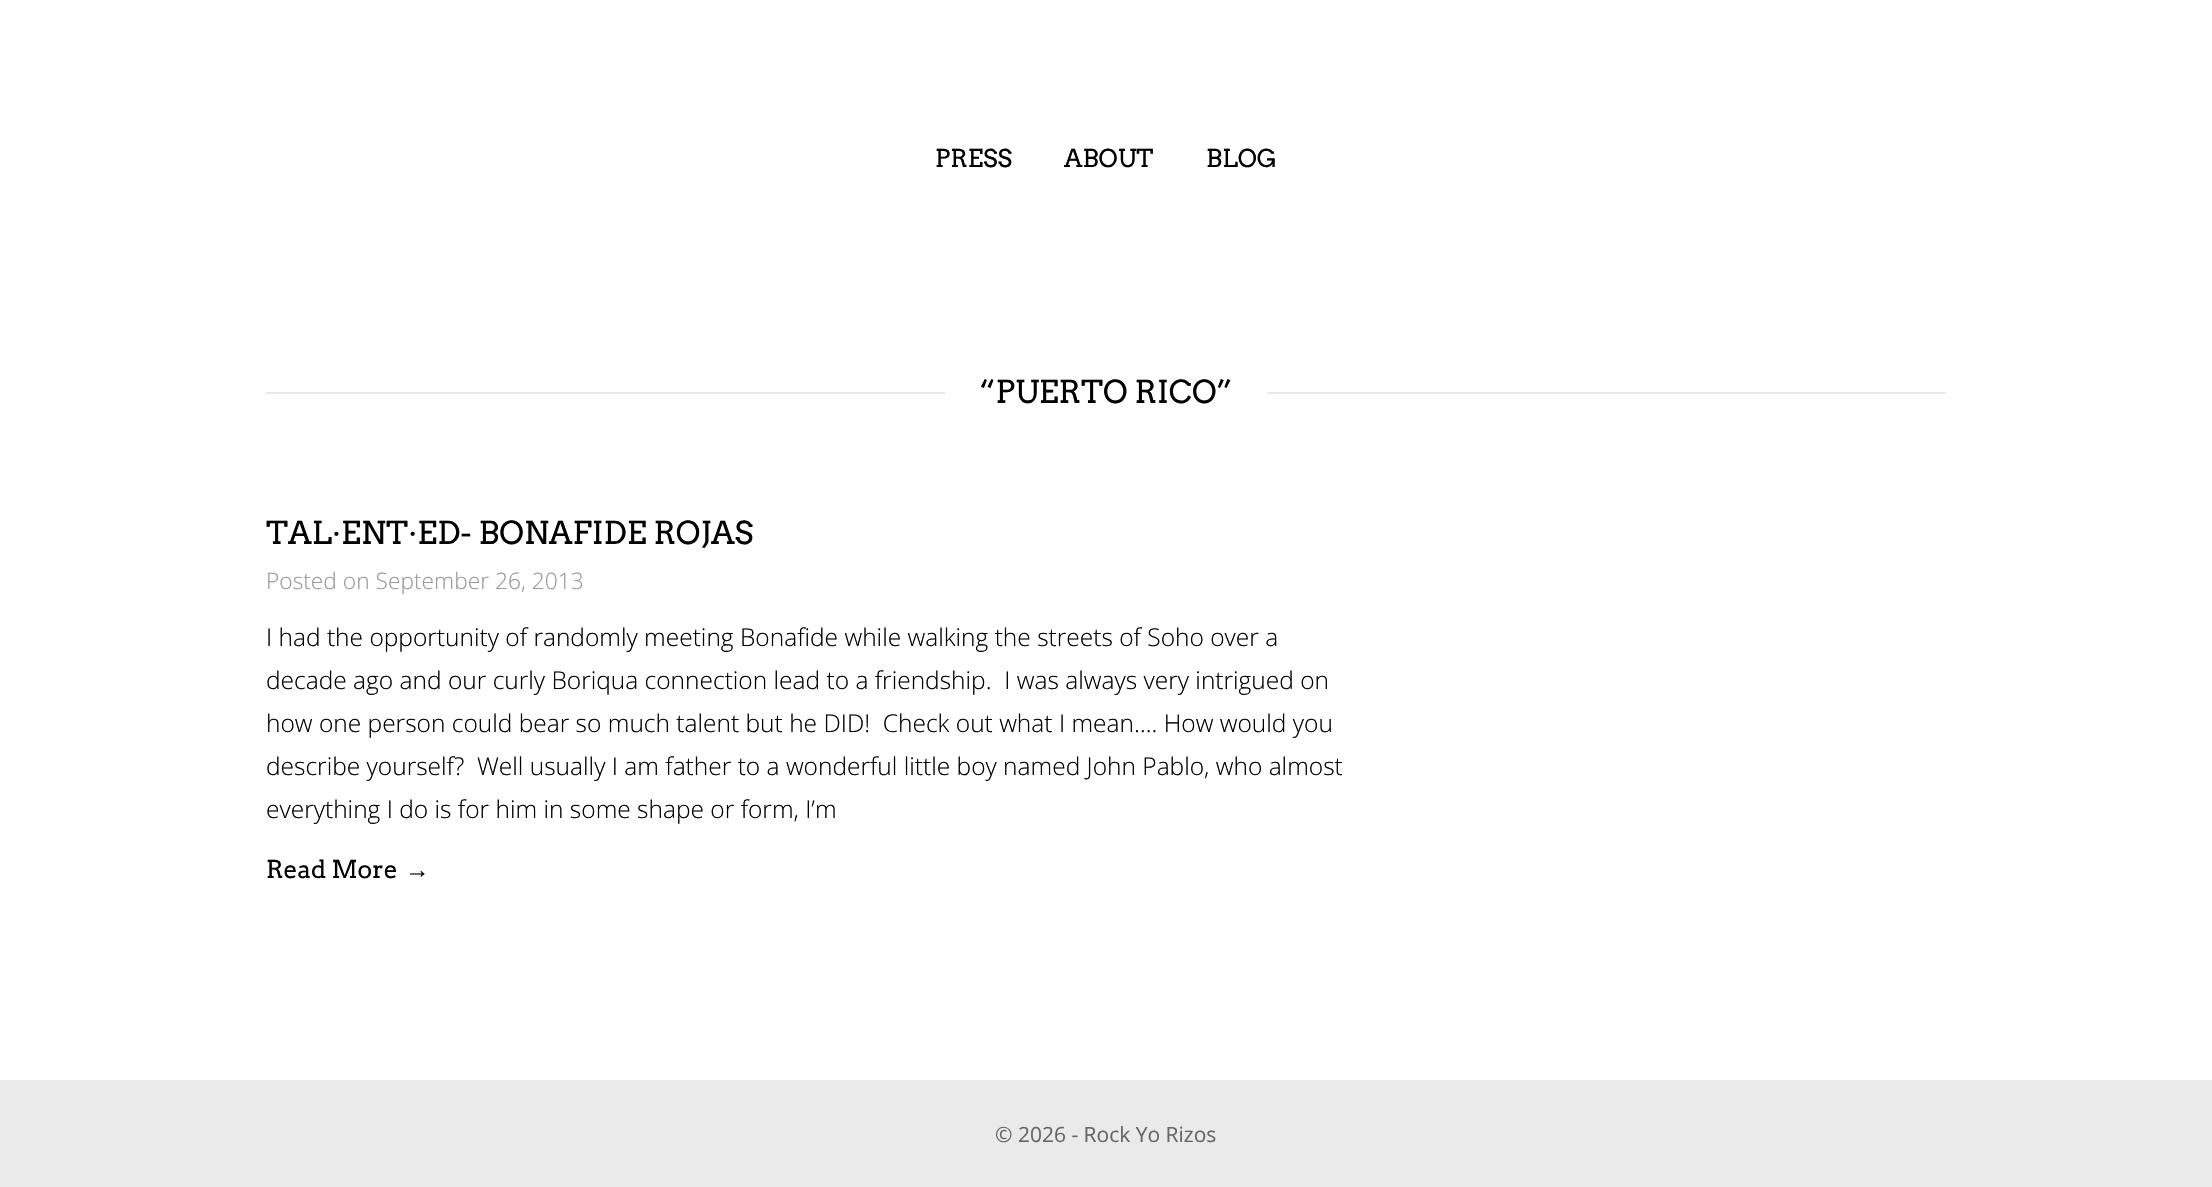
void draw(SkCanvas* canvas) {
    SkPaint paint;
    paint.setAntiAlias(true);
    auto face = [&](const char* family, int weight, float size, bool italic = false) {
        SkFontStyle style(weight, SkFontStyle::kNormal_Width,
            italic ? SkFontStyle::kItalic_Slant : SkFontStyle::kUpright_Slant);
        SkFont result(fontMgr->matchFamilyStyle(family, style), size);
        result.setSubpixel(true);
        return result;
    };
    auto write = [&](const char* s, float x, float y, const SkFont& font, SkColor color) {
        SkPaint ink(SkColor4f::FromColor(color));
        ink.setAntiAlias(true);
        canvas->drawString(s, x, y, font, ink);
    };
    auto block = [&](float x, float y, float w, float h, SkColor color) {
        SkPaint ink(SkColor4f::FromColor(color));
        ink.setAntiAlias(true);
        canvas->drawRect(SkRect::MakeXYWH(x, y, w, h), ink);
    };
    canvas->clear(SK_ColorWHITE);
    auto kFont1 = face("Arvo", 400, 24.5f);
    write("PRESS", 935, 167, kFont1, SK_ColorBLACK);
    write("ABOUT", 1064, 167, kFont1, SK_ColorBLACK);
    write("BLOG", 1206, 167, kFont1, SK_ColorBLACK);
    block(266, 392, 1680, 2, SkColorSetRGB(234, 234, 234));
    block(945, 392, 322, 2, SK_ColorWHITE);
    auto kFont2 = face("Arvo", 400, 31.5f);
    write("“PUERTO RICO”", 979, 403, kFont2, SK_ColorBLACK);
    write("TAL·ENT·ED- BONAFIDE ROJAS", 266, 544, kFont2, SK_ColorBLACK);
    auto kFont3 = face("Open Sans", 300, 22.75f);
    write("Posted on September 26, 2013", 266, 589, kFont3, SkColorSetRGB(153, 153, 153));
    auto kFont4 = face("Open Sans", 300, 24.5f);
    write("I had the opportunity of randomly meeting Bonafide while walking the streets of Soho over a", 266, 646, kFont4, SK_ColorBLACK);
    write("decade ago and our curly Boriqua connection lead to a friendship.  I was always very intrigued on", 266, 689, kFont4, SK_ColorBLACK);
    write("how one person could bear so much talent but he DID!  Check out what I mean…. How would you", 266, 732, kFont4, SK_ColorBLACK);
    write("describe yourself?  Well usually I am father to a wonderful little boy named John Pablo, who almost", 266, 775, kFont4, SK_ColorBLACK);
    write("everything I do is for him in some shape or form, I’m", 266, 818, kFont4, SK_ColorBLACK);
    write("Read More", 266, 878, kFont1, SK_ColorBLACK);
    auto kFont5 = face("Liberation Sans", 400, 24.5f);
    write("→", 405, 878, kFont5, SK_ColorBLACK);
    block(0, 1080, 2212, 107, SkColorSetRGB(234, 234, 234));
    auto kFont6 = face("Open Sans", 400, 21);
    write("© 2026 - Rock Yo Rizos", 995, 1142, kFont6, SkColorSetRGB(102, 102, 102));
}
